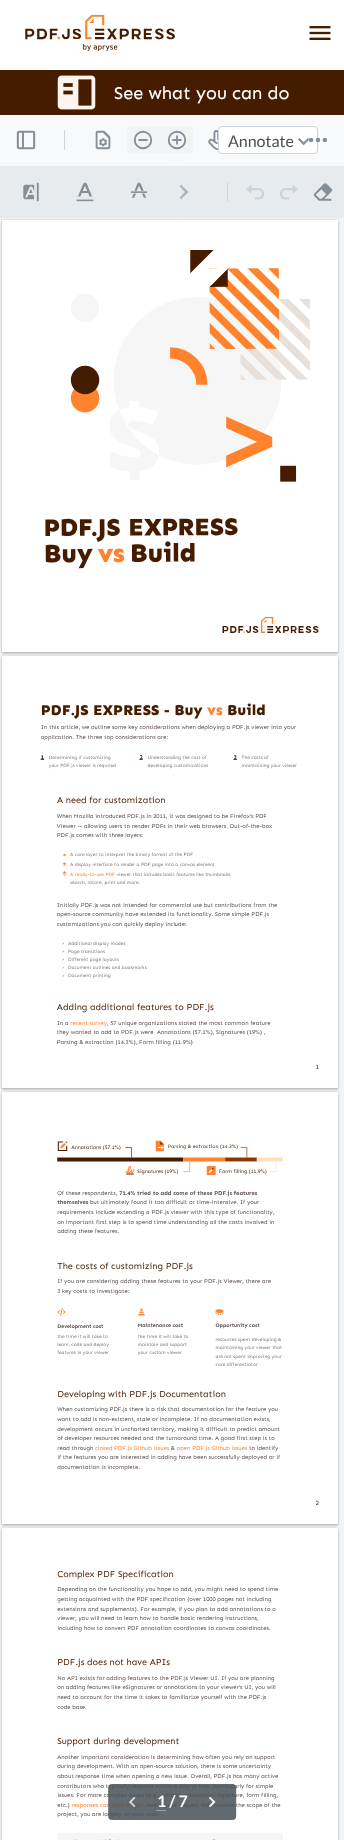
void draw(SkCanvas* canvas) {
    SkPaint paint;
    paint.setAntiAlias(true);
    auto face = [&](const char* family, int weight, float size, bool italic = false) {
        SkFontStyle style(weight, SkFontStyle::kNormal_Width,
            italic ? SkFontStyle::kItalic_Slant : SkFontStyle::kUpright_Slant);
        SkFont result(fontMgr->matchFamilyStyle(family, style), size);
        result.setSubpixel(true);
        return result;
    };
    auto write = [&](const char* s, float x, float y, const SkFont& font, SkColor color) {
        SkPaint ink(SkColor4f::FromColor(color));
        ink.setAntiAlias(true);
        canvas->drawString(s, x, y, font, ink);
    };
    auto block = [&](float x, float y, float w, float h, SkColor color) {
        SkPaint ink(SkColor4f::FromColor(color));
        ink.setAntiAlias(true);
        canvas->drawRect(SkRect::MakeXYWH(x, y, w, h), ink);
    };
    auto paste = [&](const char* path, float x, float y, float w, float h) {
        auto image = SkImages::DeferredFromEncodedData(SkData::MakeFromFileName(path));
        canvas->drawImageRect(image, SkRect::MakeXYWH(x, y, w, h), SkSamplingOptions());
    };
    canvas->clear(SK_ColorWHITE);
    paste("pic1.png", 25, 14, 150, 37);
    paste("pic2.png", 309, 26, 22, 14);
    block(0, 70, 344, 45, SkColorSetRGB(70, 28, 0));
    paste("pic3.png", 57, 75, 39, 35);
    auto kFont1 = face("Sen", 400, 18);
    write("See what you can do", 114, 99, kFont1, SK_ColorWHITE);
    paste("pic4.png", 0, 115, 344, 1725);
}
